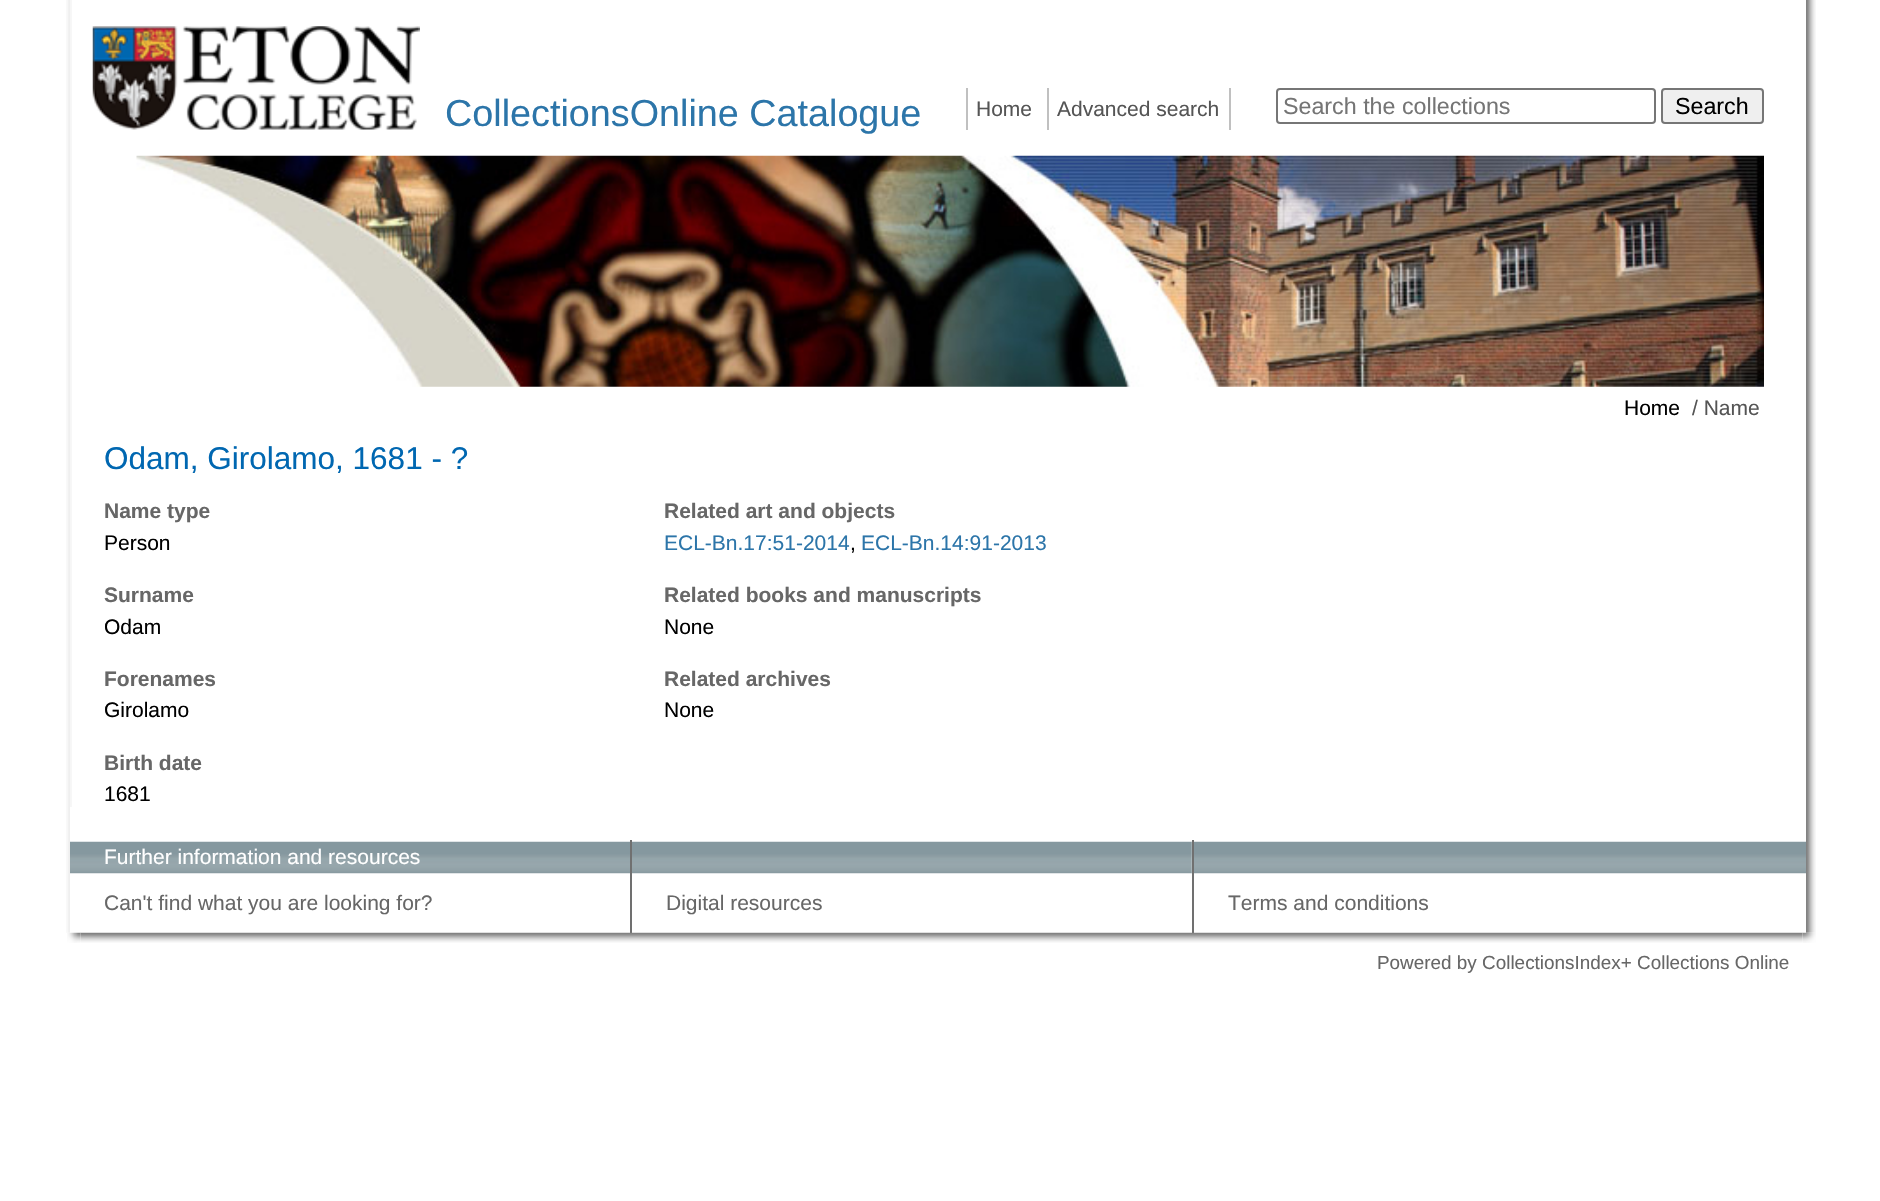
void draw(SkCanvas* canvas) {
    SkPaint paint;
    paint.setAntiAlias(true);
    auto face = [&](const char* family, int weight, float size, bool italic = false) {
        SkFontStyle style(weight, SkFontStyle::kNormal_Width,
            italic ? SkFontStyle::kItalic_Slant : SkFontStyle::kUpright_Slant);
        SkFont result(fontMgr->matchFamilyStyle(family, style), size);
        result.setSubpixel(true);
        return result;
    };
    auto write = [&](const char* s, float x, float y, const SkFont& font, SkColor color) {
        SkPaint ink(SkColor4f::FromColor(color));
        ink.setAntiAlias(true);
        canvas->drawString(s, x, y, font, ink);
    };
    auto block = [&](float x, float y, float w, float h, SkColor color) {
        SkPaint ink(SkColor4f::FromColor(color));
        ink.setAntiAlias(true);
        canvas->drawRect(SkRect::MakeXYWH(x, y, w, h), ink);
    };
    auto paste = [&](const char* path, float x, float y, float w, float h) {
        auto image = SkImages::DeferredFromEncodedData(SkData::MakeFromFileName(path));
        canvas->drawImageRect(image, SkRect::MakeXYWH(x, y, w, h), SkSamplingOptions());
    };
    canvas->clear(SK_ColorWHITE);
    paste("pic1.png", 66, 0, 6, 933);
    paste("pic2.png", 1806, 0, 10, 933);
    paste("pic3.png", 92, 26, 328, 104);
    auto kFont1 = face("Liberation Sans", 400, 37.75f);
    write("CollectionsOnline Catalogue", 445, 126, kFont1, SkColorSetRGB(44, 117, 169));
    auto kFont2 = face("Liberation Sans", 400, 21);
    write("Home", 976, 116, kFont2, SkColorSetRGB(85, 85, 85));
    block(966, 88, 2, 42, SkColorSetRGB(192, 192, 192));
    block(1047, 88, 2, 42, SkColorSetRGB(192, 192, 192));
    write("Advanced search", 1057, 116, kFont2, SkColorSetRGB(85, 85, 85));
    block(1229, 88, 2, 42, SkColorSetRGB(192, 192, 192));
    paint.setStyle(SkPaint::kStroke_Style);
    paint.setStrokeWidth(2);
    paint.setColor(SkColorSetRGB(118, 118, 118));
    canvas->drawRoundRect(SkRect::MakeXYWH(1277, 89, 378, 34), 3, 3, paint);
    auto kFont3 = face("Liberation Sans", 400, 23.25f);
    write("Search the collections", 1283, 114, kFont3, SkColorSetRGB(117, 117, 117));
    paint.setStyle(SkPaint::kFill_Style);
    paint.setColor(SkColorSetRGB(239, 239, 239));
    canvas->drawRoundRect(SkRect::MakeXYWH(1662, 89, 101, 34), 3, 3, paint);
    paint.setStyle(SkPaint::kStroke_Style);
    paint.setColor(SkColorSetRGB(118, 118, 118));
    canvas->drawRoundRect(SkRect::MakeXYWH(1662, 89, 101, 34), 3, 3, paint);
    write("Search", 1675, 114, kFont3, SK_ColorBLACK);
    paste("pic4.png", 136, 155, 1628, 232);
    write("Home", 1624, 415, kFont2, SK_ColorBLACK);
    write("/ Name", 1692, 415, kFont2, SkColorSetRGB(85, 85, 85));
    auto kFont4 = face("Liberation Sans", 400, 31.5f);
    write("Odam, Girolamo, 1681 - ?", 104, 469, kFont4, SkColorSetRGB(0, 103, 177));
    auto kFont5 = face("Liberation Sans", 700, 21);
    write("Name type", 104, 518, kFont5, SkColorSetRGB(103, 103, 103));
    write("Person", 104, 550, kFont2, SK_ColorBLACK);
    write("Surname", 104, 602, kFont5, SkColorSetRGB(103, 103, 103));
    write("Odam", 104, 634, kFont2, SK_ColorBLACK);
    write("Forenames", 104, 686, kFont5, SkColorSetRGB(103, 103, 103));
    write("Girolamo", 104, 717, kFont2, SK_ColorBLACK);
    write("Birth date", 104, 770, kFont5, SkColorSetRGB(103, 103, 103));
    write("1681", 104, 801, kFont2, SK_ColorBLACK);
    write("Related art and objects", 664, 518, kFont5, SkColorSetRGB(103, 103, 103));
    write("ECL-Bn.17:51-2014", 664, 550, kFont2, SkColorSetRGB(44, 117, 169));
    write(",", 850, 550, kFont2, SK_ColorBLACK);
    write("ECL-Bn.14:91-2013", 861, 550, kFont2, SkColorSetRGB(44, 117, 169));
    write("Related books and manuscripts", 664, 602, kFont5, SkColorSetRGB(103, 103, 103));
    write("None", 664, 634, kFont2, SK_ColorBLACK);
    write("Related archives", 664, 686, kFont5, SkColorSetRGB(103, 103, 103));
    write("None", 664, 717, kFont2, SK_ColorBLACK);
    block(70, 807, 2, 126, SK_ColorWHITE);
    paste("pic5.png", 70, 841, 560, 33);
    write("Further information and resources", 104, 864, kFont2, SK_ColorWHITE);
    paste("pic6.png", 632, 841, 560, 33);
    paste("pic7.png", 1191, 841, 615, 33);
    block(630, 840, 2, 93, SkColorSetRGB(112, 112, 112));
    write("Can't find what you are looking for?", 104, 910, kFont2, SkColorSetRGB(103, 103, 103));
    block(1192, 840, 2, 93, SkColorSetRGB(112, 112, 112));
    write("Digital resources", 666, 910, kFont2, SkColorSetRGB(103, 103, 103));
    write("Terms and conditions", 1228, 910, kFont2, SkColorSetRGB(103, 103, 103));
    paste("pic8.png", 67, 932, 14, 11);
    paste("pic9.png", 80, 932, 1723, 11);
    paste("pic10.png", 1802, 932, 14, 11);
    auto kFont6 = face("Liberation Sans", 400, 18.9f);
    write("Powered by CollectionsIndex+ Collections Online", 1377, 969, kFont6, SkColorSetRGB(103, 103, 103));
}
